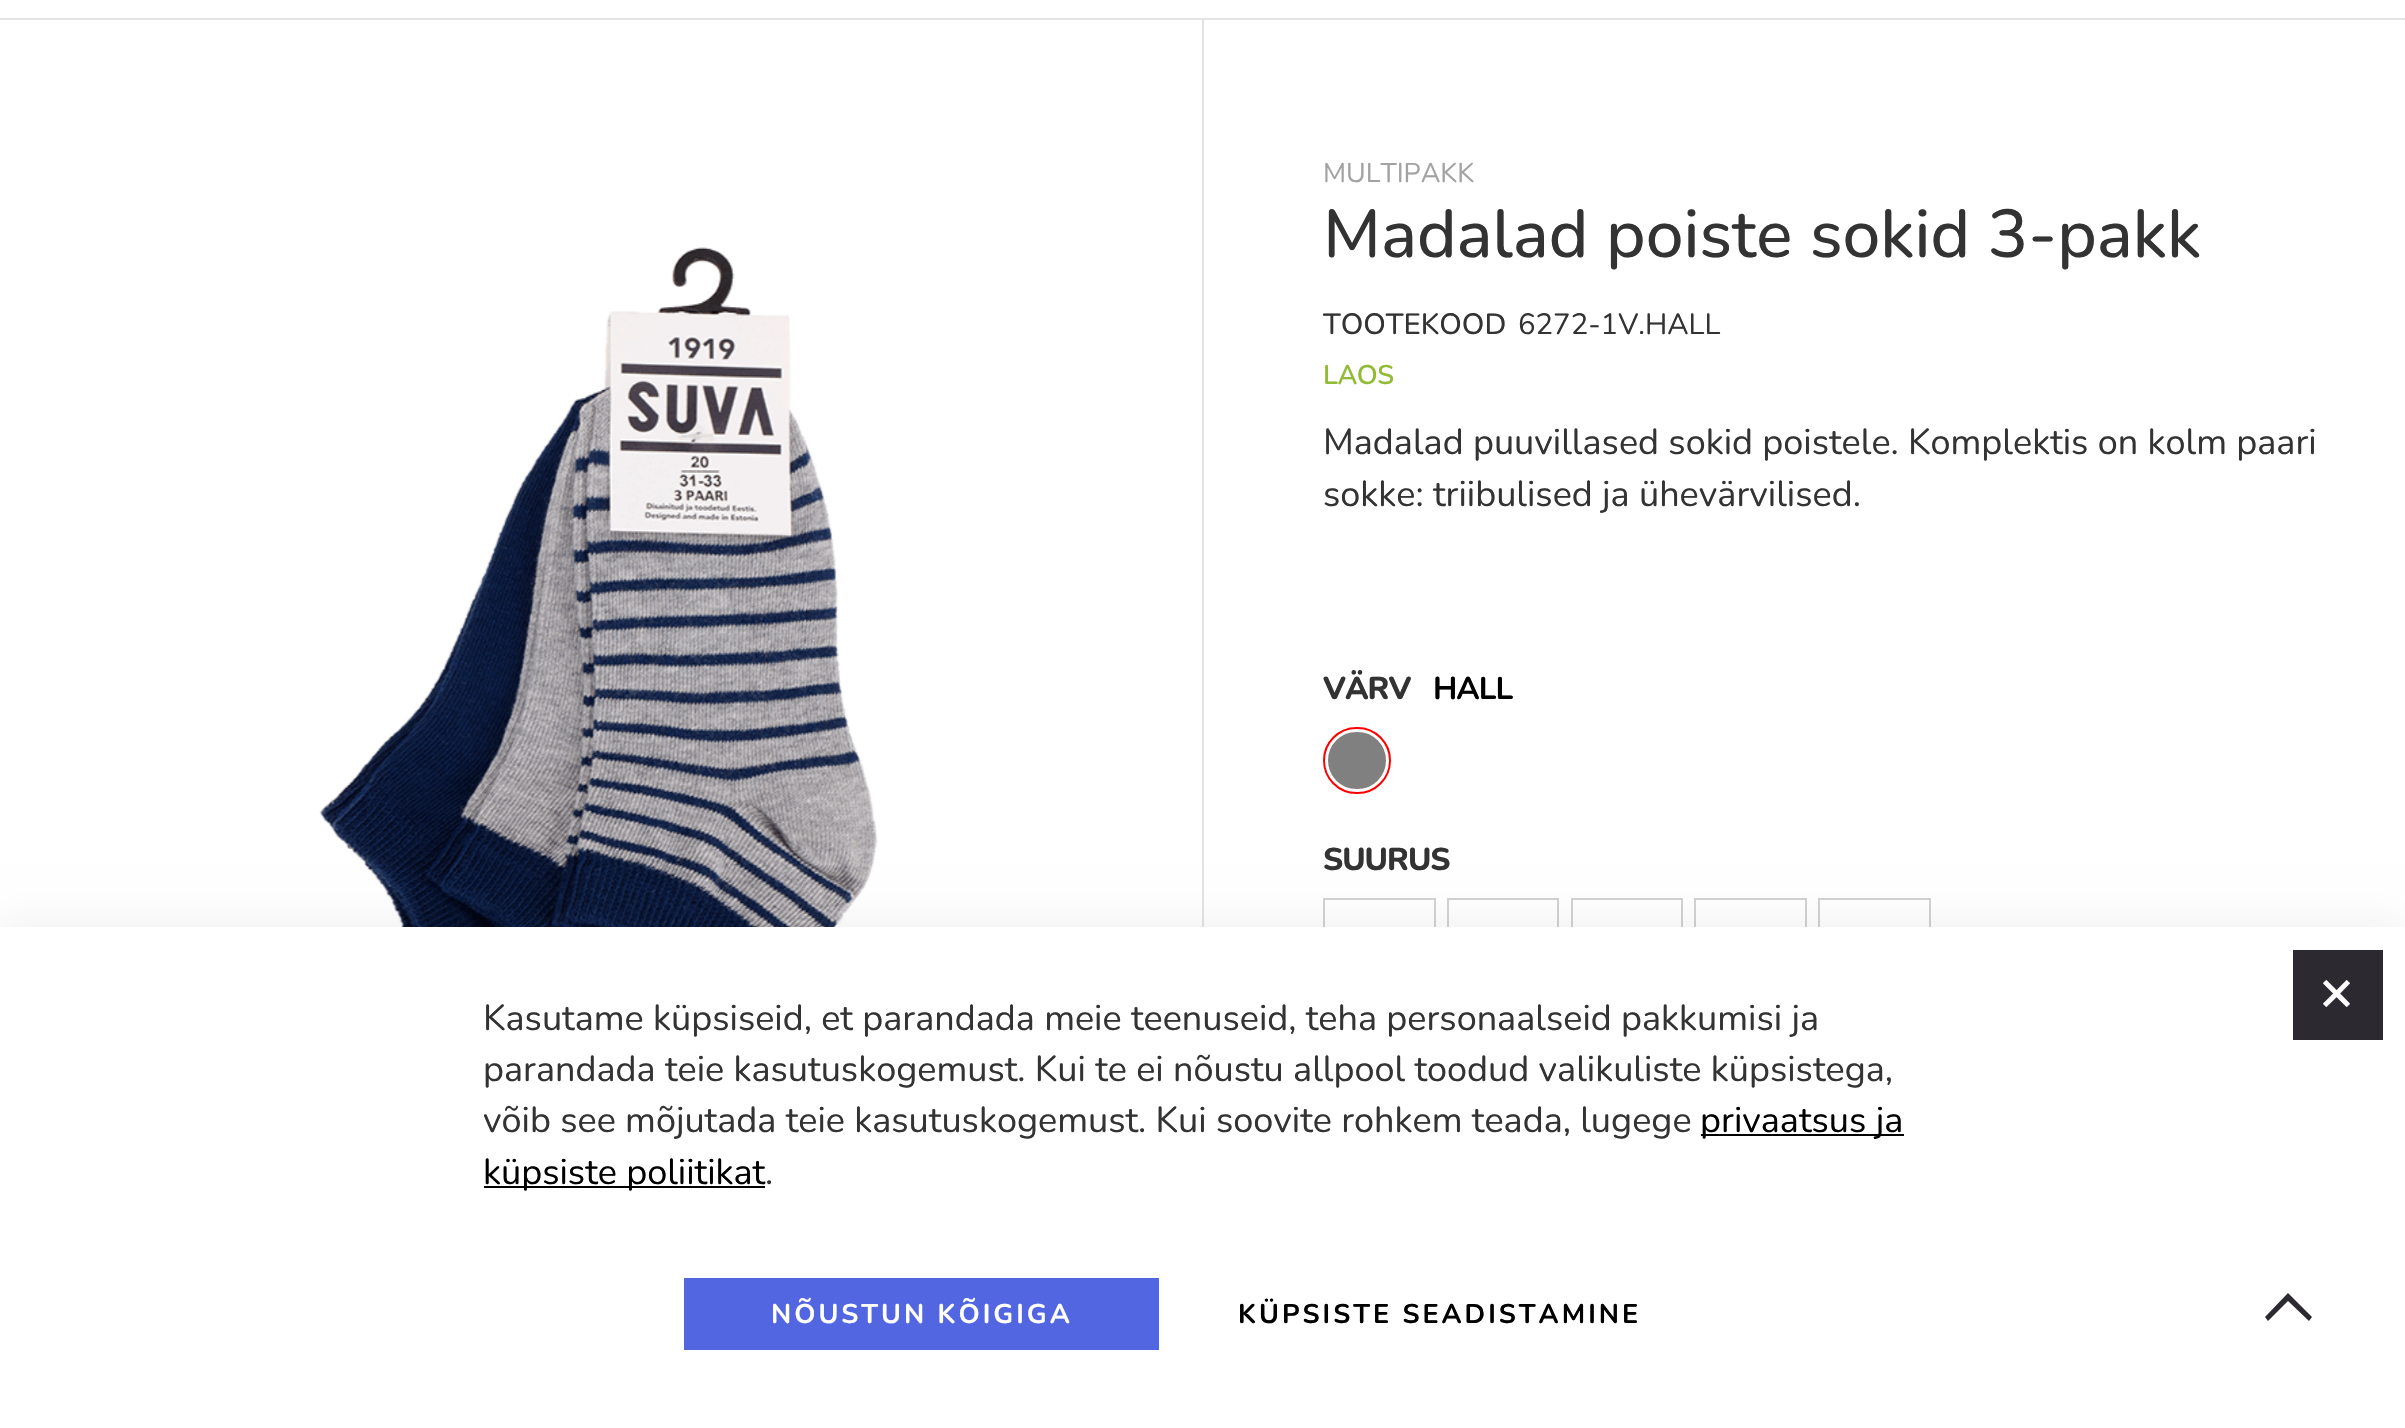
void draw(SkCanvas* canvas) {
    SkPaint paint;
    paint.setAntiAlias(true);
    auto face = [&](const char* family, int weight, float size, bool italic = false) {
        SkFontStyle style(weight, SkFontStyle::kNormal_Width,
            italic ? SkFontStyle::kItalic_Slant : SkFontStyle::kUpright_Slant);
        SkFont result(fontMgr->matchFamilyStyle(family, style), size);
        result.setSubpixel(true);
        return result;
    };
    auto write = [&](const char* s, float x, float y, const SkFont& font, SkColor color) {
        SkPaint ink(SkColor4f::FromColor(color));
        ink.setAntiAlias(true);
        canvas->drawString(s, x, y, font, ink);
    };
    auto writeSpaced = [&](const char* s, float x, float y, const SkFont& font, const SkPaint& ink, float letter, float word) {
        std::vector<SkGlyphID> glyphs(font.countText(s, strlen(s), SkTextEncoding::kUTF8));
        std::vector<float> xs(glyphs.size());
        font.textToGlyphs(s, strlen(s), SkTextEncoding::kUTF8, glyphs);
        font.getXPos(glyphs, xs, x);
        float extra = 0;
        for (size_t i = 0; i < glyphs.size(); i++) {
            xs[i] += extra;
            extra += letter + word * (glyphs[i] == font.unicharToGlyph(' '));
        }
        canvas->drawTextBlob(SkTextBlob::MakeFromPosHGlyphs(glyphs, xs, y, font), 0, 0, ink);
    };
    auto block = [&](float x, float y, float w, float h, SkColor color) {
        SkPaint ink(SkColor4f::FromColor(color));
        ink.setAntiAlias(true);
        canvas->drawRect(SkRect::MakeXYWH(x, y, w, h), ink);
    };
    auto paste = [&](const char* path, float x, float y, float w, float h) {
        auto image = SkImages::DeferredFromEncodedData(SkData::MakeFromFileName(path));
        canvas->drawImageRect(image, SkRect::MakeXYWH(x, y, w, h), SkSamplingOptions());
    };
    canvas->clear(SK_ColorWHITE);
    block(0, 18, 2405, 2, SkColorSetRGB(227, 227, 227));
    block(1202, 20, 2, 907, SkColorSetRGB(227, 227, 227));
    paste("pic1.png", 319, 247, 559, 680);
    auto kFont1 = face("Nunito", 400, 27);
    write("MULTIPAKK", 1323, 182, kFont1, SkColorSetRGB(162, 162, 162));
    auto kFont2 = face("Nunito", 500, 67.5f);
    write("Madalad poiste sokid 3-pakk", 1323, 257, kFont2, SkColorSetRGB(51, 51, 51));
    auto kFont3 = face("Nunito", 500, 29.25f);
    write("TOOTEKOOD", 1323, 334, kFont3, SkColorSetRGB(51, 51, 51));
    auto kFont4 = face("Nunito", 400, 29.25f);
    write("6272-1V.HALL", 1518, 334, kFont4, SkColorSetRGB(51, 51, 51));
    auto kFont5 = face("Nunito", 600, 27);
    paint.setColor(SkColorSetRGB(146, 187, 53));
    writeSpaced("LAOS", 1323, 384, kFont5, paint, -0.5f, 0);
    auto kFont6 = face("Nunito", 400, 36);
    write("Madalad puuvillased sokid poistele. Komplektis on kolm paari", 1323, 454, kFont6, SkColorSetRGB(51, 51, 51));
    write("sokke: triibulised ja ühevärvilised.", 1323, 506, kFont6, SkColorSetRGB(51, 51, 51));
    auto kFont7 = face("Nunito", 800, 31.5f);
    paint.setColor(SkColorSetRGB(51, 51, 51));
    writeSpaced("VÄRV", 1323, 699, kFont7, paint, -1, 0);
    auto kFont8 = face("Nunito", 700, 31.5f);
    paint.setColor(SK_ColorBLACK);
    writeSpaced("HALL", 1433, 699, kFont8, paint, -1, 0);
    paint.setColor(SkColorSetRGB(128, 128, 128));
    canvas->drawRoundRect(SkRect::MakeXYWH(1325.5f, 729.5f, 63, 62), 31, 31, paint);
    paint.setStyle(SkPaint::kStroke_Style);
    paint.setStrokeWidth(5);
    paint.setColor(SK_ColorWHITE);
    canvas->drawRoundRect(SkRect::MakeXYWH(1325.5f, 729.5f, 63, 62), 31, 31, paint);
    paint.setStrokeWidth(2);
    paint.setColor(SkColorSetRGB(255, 0, 0));
    canvas->drawRoundRect(SkRect::MakeXYWH(1324, 728, 66, 65), 32.5f, 32.5f, paint);
    paint.setStyle(SkPaint::kFill_Style);
    paint.setColor(SkColorSetRGB(51, 51, 51));
    writeSpaced("SUURUS", 1323, 870, kFont7, paint, -1, 0);
    paint.setStyle(SkPaint::kStroke_Style);
    paint.setColor(SkColorSetRGB(210, 210, 210));
    canvas->drawRect(SkRect::MakeXYWH(1324, 899, 111, 79), paint);
    canvas->drawRect(SkRect::MakeXYWH(1448, 899, 110, 79), paint);
    canvas->drawRect(SkRect::MakeXYWH(1572, 899, 110, 79), paint);
    canvas->drawRect(SkRect::MakeXYWH(1695, 899, 111, 79), paint);
    canvas->drawRect(SkRect::MakeXYWH(1819, 899, 111, 79), paint);
    paint.setStyle(SkPaint::kFill_Style);
    paint.setColor(SkColorSetARGB(15, 0, 0, 0));
    paint.setMaskFilter(SkMaskFilter::MakeBlur(kNormal_SkBlurStyle, 20));
    canvas->drawRect(SkRect::MakeXYWH(0, 923, 2405, 501), paint);
    paint.setMaskFilter(nullptr);
    block(0, 927, 2405, 501, SK_ColorWHITE);
    paint.setColor(SkColorSetRGB(44, 41, 48));
    canvas->drawPath(SkPathBuilder().moveTo(2288, 1293).lineTo(2265, 1317).lineTo(2268, 1321).lineTo(2288, 1301).lineTo(2309, 1321).lineTo(2312, 1317).close().detach(), paint);
    block(2293, 950, 90, 90, SkColorSetRGB(44, 41, 48));
    auto kFont9 = face("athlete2", 400, 27);
    paint.setColor(SK_ColorWHITE);
    writeSpaced("@", 2323, 1007, kFont9, paint, 2, 0);
    write("Kasutame küpsiseid, et parandada meie teenuseid, teha personaalseid pakkumisi ja", 483, 1030, kFont6, SkColorSetRGB(51, 51, 51));
    write("parandada teie kasutuskogemust. Kui te ei nõustu allpool toodud valikuliste küpsistega,", 483, 1081, kFont6, SkColorSetRGB(51, 51, 51));
    canvas->save();
    canvas->clipRect(SkRect::MakeXYWH(484, 995, 1440, 204));
    write("võib see mõjutada teie kasutuskogemust. Kui soovite rohkem teada, lugege", 483, 1132, kFont6, SkColorSetRGB(51, 51, 51));
    canvas->restore();
    block(1701, 1134, 203, 2, SK_ColorBLACK);
    write("privaatsus ja", 1700, 1132, kFont6, SK_ColorBLACK);
    block(484, 1186, 281, 2, SK_ColorBLACK);
    write("küpsiste poliitikat", 483, 1184, kFont6, SK_ColorBLACK);
    write(".", 765, 1184, kFont6, SkColorSetRGB(51, 51, 51));
    block(684, 1278, 475, 72, SkColorSetRGB(81, 102, 224));
    auto kFont10 = face("Nunito", 700, 27);
    writeSpaced("NÕUSTUN KÕIGIGA", 771, 1323, kFont10, paint, 3, 0);
    paint.setColor(SK_ColorBLACK);
    writeSpaced("KÜPSISTE SEADISTAMINE", 1238, 1323, kFont10, paint, 3, 0);
}
